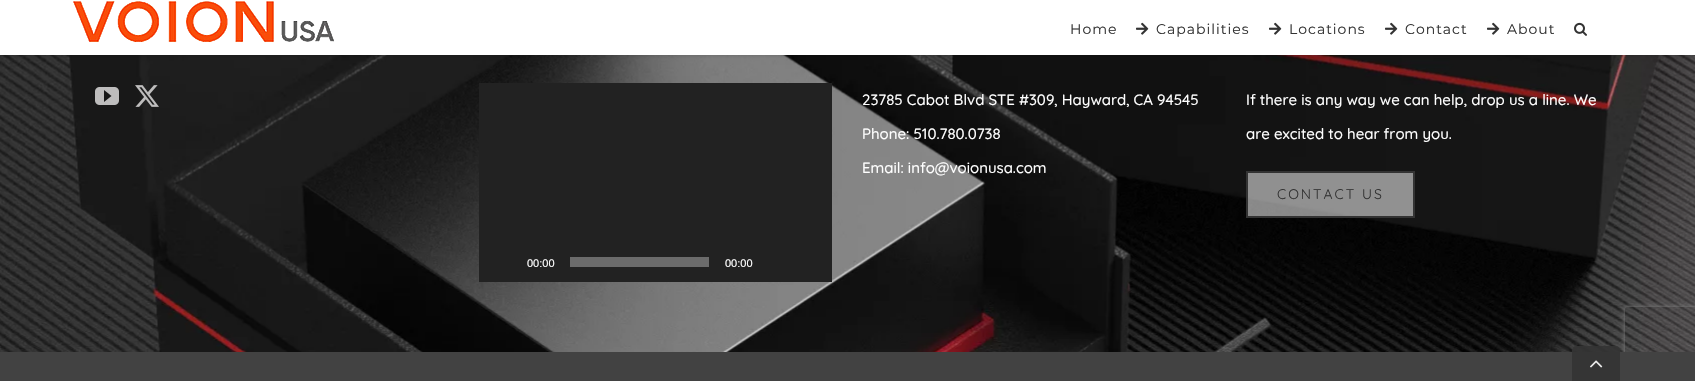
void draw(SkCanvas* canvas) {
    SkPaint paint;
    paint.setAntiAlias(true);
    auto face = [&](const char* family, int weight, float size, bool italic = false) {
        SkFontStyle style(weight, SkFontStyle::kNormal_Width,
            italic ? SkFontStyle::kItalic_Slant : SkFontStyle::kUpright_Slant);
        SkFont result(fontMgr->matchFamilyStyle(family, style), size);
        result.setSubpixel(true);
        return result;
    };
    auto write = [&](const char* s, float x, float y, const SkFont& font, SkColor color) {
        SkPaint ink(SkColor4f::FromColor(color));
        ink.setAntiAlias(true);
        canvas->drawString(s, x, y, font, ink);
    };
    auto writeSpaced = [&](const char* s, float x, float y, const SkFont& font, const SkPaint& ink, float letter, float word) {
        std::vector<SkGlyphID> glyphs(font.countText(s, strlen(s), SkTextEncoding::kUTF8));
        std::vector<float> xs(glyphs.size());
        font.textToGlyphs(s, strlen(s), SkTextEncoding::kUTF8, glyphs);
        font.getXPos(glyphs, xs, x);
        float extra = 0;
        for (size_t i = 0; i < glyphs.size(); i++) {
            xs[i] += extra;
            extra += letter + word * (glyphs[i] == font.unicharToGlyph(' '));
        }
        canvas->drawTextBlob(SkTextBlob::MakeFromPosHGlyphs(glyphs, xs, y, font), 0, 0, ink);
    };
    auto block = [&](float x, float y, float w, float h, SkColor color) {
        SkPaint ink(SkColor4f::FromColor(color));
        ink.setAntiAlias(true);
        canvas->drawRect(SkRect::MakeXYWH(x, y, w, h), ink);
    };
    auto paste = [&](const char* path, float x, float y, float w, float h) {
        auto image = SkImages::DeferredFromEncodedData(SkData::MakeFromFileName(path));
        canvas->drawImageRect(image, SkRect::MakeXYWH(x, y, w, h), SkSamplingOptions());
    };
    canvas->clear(SK_ColorWHITE);
    paste("pic4.png", 0, 55, 1695, 297);
    paint.setColor(SkColorSetARGB(31, 0, 0, 0));
    paint.setMaskFilter(SkMaskFilter::MakeBlur(kNormal_SkBlurStyle, 1.5f));
    canvas->drawRect(SkRect::MakeXYWH(0, 1, 1695, 55), paint);
    paint.setMaskFilter(nullptr);
    block(0, 0, 1695, 55, SK_ColorWHITE);
    paste("pic1.png", 73, 1, 261, 42);
    auto kFont1 = face("Montserrat", 400, 14);
    paint.setColor(SkColorSetRGB(51, 51, 51));
    writeSpaced("Home", 1070, 34, kFont1, paint, 1, 0);
    paste("pic2.png", 1136, 22, 13, 13);
    writeSpaced("Capabilities", 1156, 34, kFont1, paint, 1, 0);
    paste("pic2.png", 1269, 22, 13, 13);
    writeSpaced("Locations", 1289, 34, kFont1, paint, 1, 0);
    paste("pic2.png", 1385, 22, 13, 13);
    writeSpaced("Contact", 1405, 34, kFont1, paint, 1, 0);
    paste("pic2.png", 1487, 22, 13, 13);
    writeSpaced("About", 1507, 34, kFont1, paint, 1, 0);
    paste("pic3.png", 1574, 22, 13, 14);
    paste("pic5.png", 95, 87, 24, 18);
    paste("pic6.png", 135, 85, 24, 22);
    auto kFont2 = face("Quicksand", 500, 15);
    write("23785 Cabot Blvd STE #309, Hayward, CA 94545", 862, 105, kFont2, SK_ColorWHITE);
    write("Phone: 510.780.0738", 862, 139, kFont2, SK_ColorWHITE);
    write("Email: info@voionusa.com", 862, 173, kFont2, SK_ColorWHITE);
    write("If there is any way we can help, drop us a line. We", 1246, 105, kFont2, SK_ColorWHITE);
    write("are excited to hear from you.", 1246, 139, kFont2, SK_ColorWHITE);
    paint.setColor(SkColorSetARGB(135, 255, 255, 255));
    canvas->drawRect(SkRect::MakeXYWH(1247, 172, 167, 45), paint);
    paint.setStyle(SkPaint::kStroke_Style);
    paint.setStrokeWidth(2);
    paint.setColor(SkColorSetRGB(51, 51, 51));
    canvas->drawRect(SkRect::MakeXYWH(1247, 172, 167, 45), paint);
    auto kFont3 = face("Quicksand", 400, 14);
    paint.setStyle(SkPaint::kFill_Style);
    writeSpaced("CONTACT US", 1277, 199, kFont3, paint, 2, 0);
    block(479, 83, 353, 199, SkColorSetRGB(34, 34, 34));
    auto kFont4 = face("Liberation Sans", 400, 11);
    write("00:00", 527, 267, kFont4, SK_ColorWHITE);
    block(570, 257, 139, 10, SkColorSetRGB(107, 107, 107));
    write("00:00", 725, 267, kFont4, SK_ColorWHITE);
    canvas->save();
    canvas->clipPath(SkPathBuilder(SkPathFillType::kEvenOdd).moveTo(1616, 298).lineTo(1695, 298).lineTo(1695, 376).lineTo(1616, 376).close().moveTo(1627, 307).lineTo(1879, 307).cubicTo(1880, 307, 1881, 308, 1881, 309).lineTo(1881, 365).cubicTo(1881, 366, 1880, 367, 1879, 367).lineTo(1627, 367).cubicTo(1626, 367, 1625, 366, 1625, 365).lineTo(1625, 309).cubicTo(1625, 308, 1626, 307, 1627, 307).close().detach(), true);
    paint.setColor(SkColorSetRGB(128, 128, 128));
    paint.setMaskFilter(SkMaskFilter::MakeBlur(kNormal_SkBlurStyle, 2.5f));
    canvas->drawRoundRect(SkRect::MakeXYWH(1625, 307, 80, 60), 2, 2, paint);
    paint.setMaskFilter(nullptr);
    canvas->restore();
    block(0, 352, 1695, 29, SkColorSetRGB(66, 66, 66));
    paint.setColor(SkColorSetARGB(230, 51, 51, 51));
    canvas->drawPath(SkPathBuilder().moveTo(1576, 346).lineTo(1616, 346).cubicTo(1618, 346, 1620, 348, 1620, 350).lineTo(1620, 381).lineTo(1572, 381).lineTo(1572, 350).cubicTo(1572, 348, 1574, 346, 1576, 346).close().detach(), paint);
    paste("pic7.png", 1590, 360, 13, 8);
}
